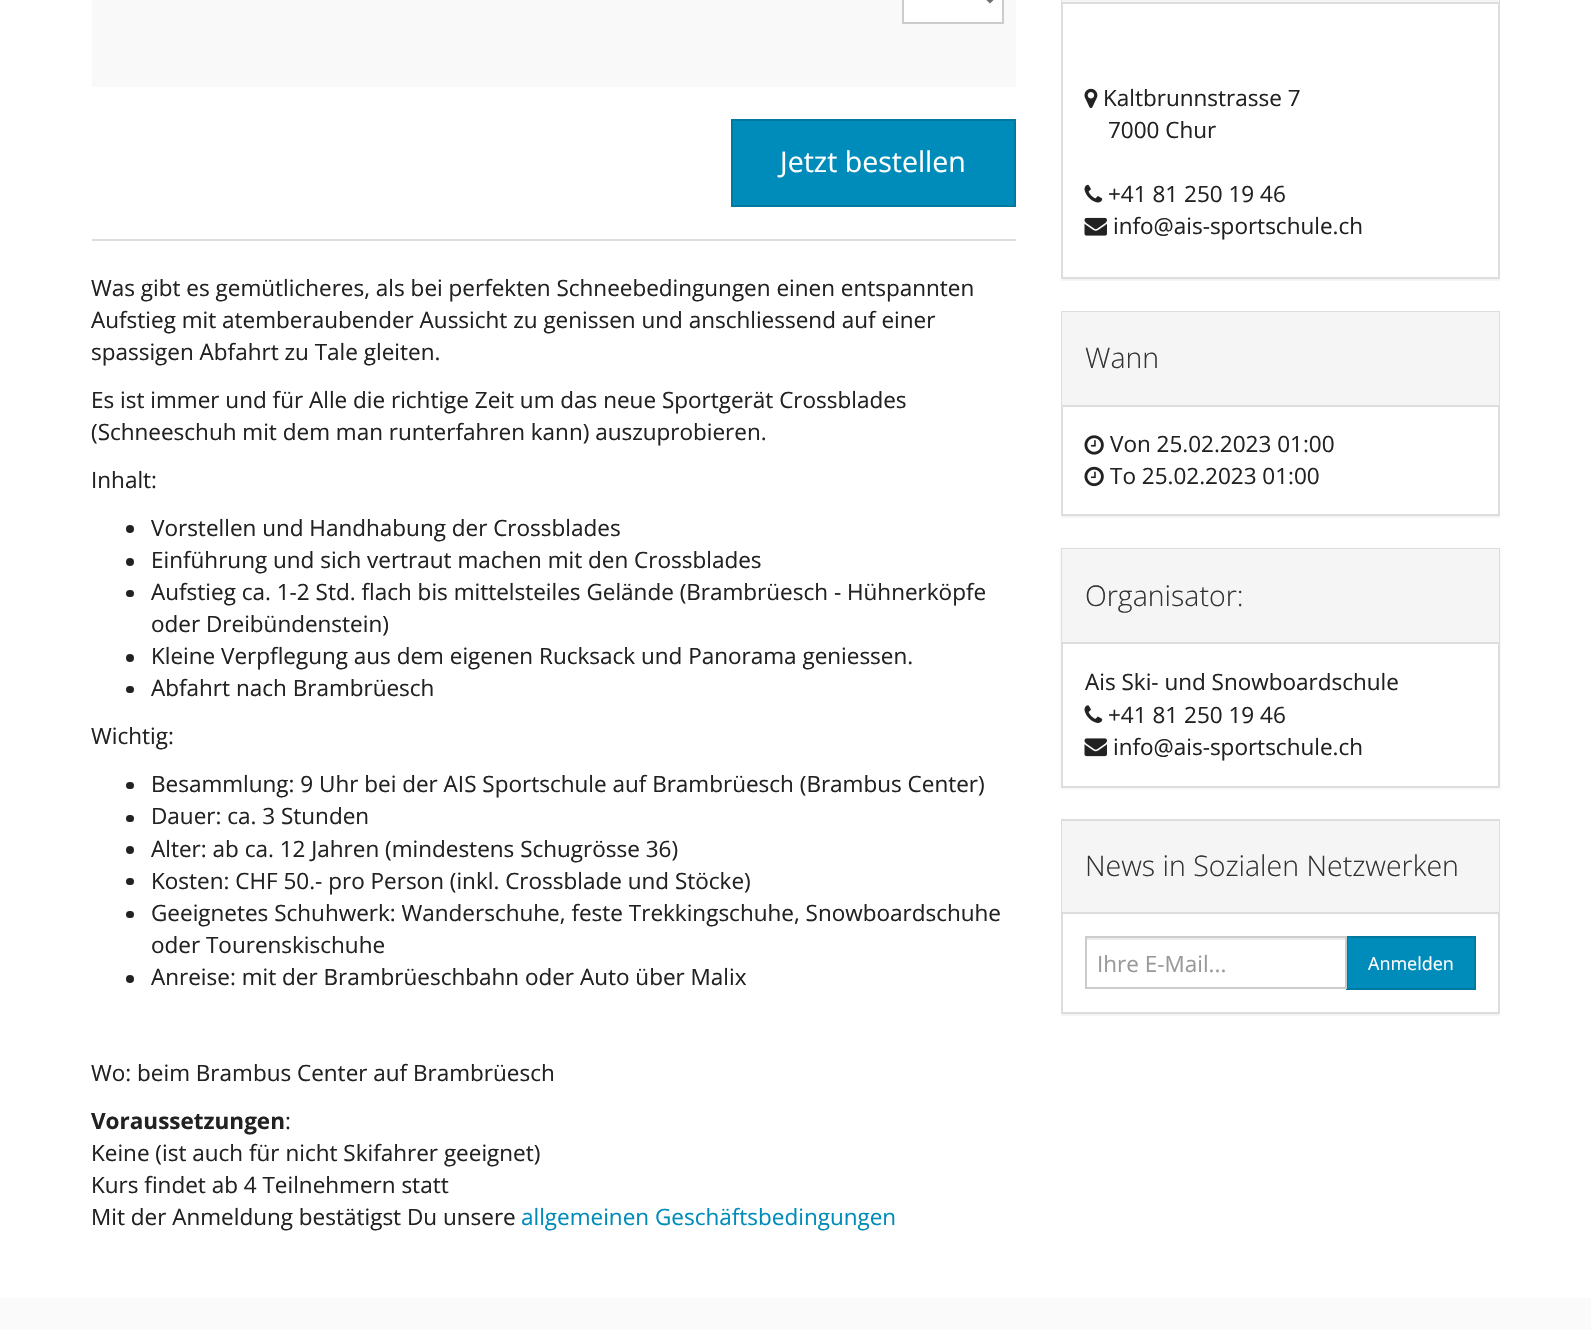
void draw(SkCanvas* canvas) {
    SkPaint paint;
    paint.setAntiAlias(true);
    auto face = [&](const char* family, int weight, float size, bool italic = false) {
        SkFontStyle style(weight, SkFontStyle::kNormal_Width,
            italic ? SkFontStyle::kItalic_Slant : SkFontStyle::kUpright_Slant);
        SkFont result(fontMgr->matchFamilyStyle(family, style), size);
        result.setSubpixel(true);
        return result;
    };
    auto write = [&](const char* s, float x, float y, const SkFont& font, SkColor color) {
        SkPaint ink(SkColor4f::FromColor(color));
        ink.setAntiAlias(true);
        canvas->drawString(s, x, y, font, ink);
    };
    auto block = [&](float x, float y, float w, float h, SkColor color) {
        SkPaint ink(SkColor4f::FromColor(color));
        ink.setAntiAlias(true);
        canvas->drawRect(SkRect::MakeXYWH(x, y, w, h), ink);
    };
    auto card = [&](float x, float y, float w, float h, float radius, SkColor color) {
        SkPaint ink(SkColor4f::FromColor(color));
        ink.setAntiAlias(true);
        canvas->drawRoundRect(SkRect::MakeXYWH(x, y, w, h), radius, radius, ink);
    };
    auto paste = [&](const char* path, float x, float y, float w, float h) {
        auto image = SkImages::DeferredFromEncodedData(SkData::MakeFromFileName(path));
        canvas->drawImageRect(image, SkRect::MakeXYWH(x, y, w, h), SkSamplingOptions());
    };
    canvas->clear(SK_ColorWHITE);
    block(92, 0, 924, 87, SkColorSetRGB(249, 249, 249));
    paint.setColor(SK_ColorWHITE);
    canvas->drawRect(SkRect::MakeXYWH(903, -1, 100, 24), paint);
    paint.setStyle(SkPaint::kStroke_Style);
    paint.setStrokeWidth(2);
    paint.setColor(SkColorSetRGB(204, 204, 204));
    canvas->drawRect(SkRect::MakeXYWH(903, -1, 100, 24), paint);
    paint.setStrokeWidth(3);
    paint.setColor(SkColorSetRGB(111, 111, 111));
    canvas->drawPath(SkPathBuilder().moveTo(984, -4.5f).lineTo(990, 1.5f).lineTo(996, -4.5f).detach(), paint);
    paint.setStyle(SkPaint::kFill_Style);
    paint.setColor(SkColorSetRGB(0, 140, 186));
    canvas->drawRect(SkRect::MakeXYWH(732, 120, 283, 86), paint);
    paint.setStyle(SkPaint::kStroke_Style);
    paint.setStrokeWidth(2);
    paint.setColor(SkColorSetRGB(0, 121, 161));
    canvas->drawRect(SkRect::MakeXYWH(732, 120, 283, 86), paint);
    auto kFont1 = face("Open Sans", 400, 28.5f);
    write("Jetzt bestellen", 780, 172, kFont1, SK_ColorWHITE);
    block(92, 239, 924, 2, SkColorSetRGB(221, 221, 221));
    auto kFont2 = face("Open Sans", 400, 22.5f);
    write("Was gibt es gemütlicheres, als bei perfekten Schneebedingungen einen entspannten", 91, 296, kFont2, SkColorSetRGB(34, 34, 34));
    write("Aufstieg mit atemberaubender Aussicht zu genissen und anschliessend auf einer", 91, 328, kFont2, SkColorSetRGB(34, 34, 34));
    write("spassigen Abfahrt zu Tale gleiten.", 91, 360, kFont2, SkColorSetRGB(34, 34, 34));
    write("Es ist immer und für Alle die richtige Zeit um das neue Sportgerät Crossblades", 91, 408, kFont2, SkColorSetRGB(34, 34, 34));
    write("(Schneeschuh mit dem man runterfahren kann) auszuprobieren.", 91, 440, kFont2, SkColorSetRGB(34, 34, 34));
    write("Inhalt:", 91, 488, kFont2, SkColorSetRGB(34, 34, 34));
    paint.setStyle(SkPaint::kFill_Style);
    paint.setColor(SkColorSetRGB(34, 34, 34));
    canvas->drawCircle(130, 529, 4, paint);
    write("Vorstellen und Handhabung der Crossblades", 151, 536, kFont2, SkColorSetRGB(34, 34, 34));
    canvas->drawCircle(130, 562, 4, paint);
    write("Einführung und sich vertraut machen mit den Crossblades", 151, 568, kFont2, SkColorSetRGB(34, 34, 34));
    card(126, 590, 8, 7, 3.5f, SkColorSetRGB(34, 34, 34));
    write("Aufstieg ca. 1-2 Std. flach bis mittelsteiles Gelände (Brambrüesch - Hühnerköpfe", 151, 600, kFont2, SkColorSetRGB(34, 34, 34));
    write("oder Dreibündenstein)", 151, 632, kFont2, SkColorSetRGB(34, 34, 34));
    canvas->drawCircle(130, 658, 4, paint);
    write("Kleine Verpflegung aus dem eigenen Rucksack und Panorama geniessen.", 151, 664, kFont2, SkColorSetRGB(34, 34, 34));
    card(126, 686, 8, 7, 3.5f, SkColorSetRGB(34, 34, 34));
    write("Abfahrt nach Brambrüesch", 151, 696, kFont2, SkColorSetRGB(34, 34, 34));
    write("Wichtig:", 91, 744, kFont2, SkColorSetRGB(34, 34, 34));
    card(126, 782, 8, 7, 3.5f, SkColorSetRGB(34, 34, 34));
    write("Besammlung: 9 Uhr bei der AIS Sportschule auf Brambrüesch (Brambus Center)", 151, 792, kFont2, SkColorSetRGB(34, 34, 34));
    card(126, 815, 8, 7, 3.5f, SkColorSetRGB(34, 34, 34));
    write("Dauer: ca. 3 Stunden", 151, 824, kFont2, SkColorSetRGB(34, 34, 34));
    canvas->drawCircle(130, 850, 4, paint);
    write("Alter: ab ca. 12 Jahren (mindestens Schugrösse 36)", 151, 857, kFont2, SkColorSetRGB(34, 34, 34));
    card(126, 878, 8, 7, 3.5f, SkColorSetRGB(34, 34, 34));
    write("Kosten: CHF 50.- pro Person (inkl. Crossblade und Stöcke)", 151, 889, kFont2, SkColorSetRGB(34, 34, 34));
    card(126, 911, 8, 7, 3.5f, SkColorSetRGB(34, 34, 34));
    write("Geeignetes Schuhwerk: Wanderschuhe, feste Trekkingschuhe, Snowboardschuhe", 151, 921, kFont2, SkColorSetRGB(34, 34, 34));
    write("oder Tourenskischuhe", 151, 953, kFont2, SkColorSetRGB(34, 34, 34));
    canvas->drawCircle(130, 979, 4, paint);
    write("Anreise: mit der Brambrüeschbahn oder Auto über Malix", 151, 985, kFont2, SkColorSetRGB(34, 34, 34));
    write("Wo: beim Brambus Center auf Brambrüesch", 91, 1081, kFont2, SkColorSetRGB(34, 34, 34));
    auto kFont3 = face("Open Sans", 700, 22.5f);
    write("Voraussetzungen", 91, 1129, kFont3, SkColorSetRGB(34, 34, 34));
    write(":", 285, 1129, kFont2, SkColorSetRGB(34, 34, 34));
    write("Keine (ist auch für nicht Skifahrer geeignet)", 91, 1161, kFont2, SkColorSetRGB(34, 34, 34));
    write("Kurs findet ab 4 Teilnehmern statt", 91, 1193, kFont2, SkColorSetRGB(34, 34, 34));
    write("Mit der Anmeldung bestätigst Du unsere", 91, 1225, kFont2, SkColorSetRGB(34, 34, 34));
    write("allgemeinen Geschäftsbedingungen", 521, 1225, kFont2, SkColorSetRGB(0, 140, 186));
    canvas->save();
    canvas->clipRect(SkRect::MakeXYWH(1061, 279, 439, 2));
    paint.setColor(SkColorSetARGB(13, 0, 0, 0));
    paint.setMaskFilter(SkMaskFilter::MakeBlur(kNormal_SkBlurStyle, 1));
    canvas->drawRect(SkRect::MakeXYWH(1061, -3, 439, 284), paint);
    paint.setMaskFilter(nullptr);
    canvas->restore();
    paint.setStyle(SkPaint::kStroke_Style);
    paint.setColor(SkColorSetRGB(221, 221, 221));
    canvas->drawRect(SkRect::MakeXYWH(1062, -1, 437, 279), paint);
    block(1062, 0, 437, 2, SkColorSetRGB(245, 245, 245));
    block(1062, 2, 437, 2, SkColorSetRGB(221, 221, 221));
    paste("pic1.png", 1084, 88, 14, 21);
    write("Kaltbrunnstrasse 7", 1103, 106, kFont2, SkColorSetRGB(34, 34, 34));
    write("7000 Chur", 1108, 138, kFont2, SkColorSetRGB(34, 34, 34));
    paste("pic2.png", 1084, 184, 19, 19);
    write("+41 81 250 19 46", 1108, 202, kFont2, SkColorSetRGB(34, 34, 34));
    paste("pic3.png", 1084, 217, 23, 19);
    write("info@ais-sportschule.ch", 1113, 234, kFont2, SkColorSetRGB(34, 34, 34));
    canvas->save();
    canvas->clipRect(SkRect::MakeXYWH(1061, 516, 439, 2));
    paint.setStyle(SkPaint::kFill_Style);
    paint.setColor(SkColorSetARGB(13, 0, 0, 0));
    paint.setMaskFilter(SkMaskFilter::MakeBlur(kNormal_SkBlurStyle, 1));
    canvas->drawRect(SkRect::MakeXYWH(1061, 312, 439, 206), paint);
    paint.setMaskFilter(nullptr);
    canvas->restore();
    paint.setStyle(SkPaint::kStroke_Style);
    paint.setColor(SkColorSetRGB(221, 221, 221));
    canvas->drawRect(SkRect::MakeXYWH(1062, 312, 437, 203), paint);
    block(1062, 312, 437, 93, SkColorSetRGB(245, 245, 245));
    block(1062, 405, 437, 2, SkColorSetRGB(221, 221, 221));
    auto kFont4 = face("Open Sans", 300, 28.5f);
    write("Wann", 1085, 368, kFont4, SkColorSetRGB(51, 51, 51));
    paste("pic4.png", 1084, 435, 20, 20);
    write("Von 25.02.2023 01:00", 1110, 452, kFont2, SkColorSetRGB(34, 34, 34));
    paste("pic5.png", 1084, 466, 20, 21);
    write("To 25.02.2023 01:00", 1110, 484, kFont2, SkColorSetRGB(34, 34, 34));
    paint.setStyle(SkPaint::kFill_Style);
    paint.setColor(SkColorSetARGB(13, 0, 0, 0));
    paint.setMaskFilter(SkMaskFilter::MakeBlur(kNormal_SkBlurStyle, 1));
    canvas->drawRect(SkRect::MakeXYWH(1061, 549, 439, 240), paint);
    paint.setMaskFilter(nullptr);
    block(1063, 644, 435, 142, SK_ColorWHITE);
    paint.setStyle(SkPaint::kStroke_Style);
    paint.setColor(SkColorSetRGB(221, 221, 221));
    canvas->drawRect(SkRect::MakeXYWH(1062, 549, 437, 238), paint);
    block(1062, 549, 437, 93, SkColorSetRGB(245, 245, 245));
    block(1062, 642, 437, 2, SkColorSetRGB(221, 221, 221));
    write("Organisator:", 1085, 606, kFont4, SkColorSetRGB(51, 51, 51));
    write("Ais Ski- und Snowboardschule", 1085, 690, kFont2, SkColorSetRGB(34, 34, 34));
    paste("pic6.png", 1084, 705, 19, 18);
    write("+41 81 250 19 46", 1108, 723, kFont2, SkColorSetRGB(34, 34, 34));
    paste("pic7.png", 1084, 738, 23, 19);
    write("info@ais-sportschule.ch", 1113, 755, kFont2, SkColorSetRGB(34, 34, 34));
    canvas->save();
    canvas->clipRect(SkRect::MakeXYWH(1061, 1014, 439, 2));
    paint.setStyle(SkPaint::kFill_Style);
    paint.setColor(SkColorSetARGB(13, 0, 0, 0));
    paint.setMaskFilter(SkMaskFilter::MakeBlur(kNormal_SkBlurStyle, 1));
    canvas->drawRect(SkRect::MakeXYWH(1061, 821, 439, 195), paint);
    paint.setMaskFilter(nullptr);
    canvas->restore();
    paint.setStyle(SkPaint::kStroke_Style);
    paint.setColor(SkColorSetRGB(221, 221, 221));
    canvas->drawRect(SkRect::MakeXYWH(1062, 820, 437, 193), paint);
    block(1062, 821, 437, 91, SkColorSetRGB(245, 245, 245));
    block(1062, 912, 437, 2, SkColorSetRGB(221, 221, 221));
    write("News in Sozialen Netzwerken", 1085, 876, kFont4, SkColorSetRGB(51, 51, 51));
    block(1086, 938, 260, 2, SkColorSetRGB(236, 236, 236));
    paint.setStyle(SkPaint::kFill_Style);
    paint.setColor(SkColorSetRGB(0, 140, 186));
    canvas->drawRect(SkRect::MakeXYWH(1347, 937, 128, 52), paint);
    paint.setStyle(SkPaint::kStroke_Style);
    paint.setColor(SkColorSetRGB(0, 121, 161));
    canvas->drawRect(SkRect::MakeXYWH(1347, 937, 128, 52), paint);
    paint.setColor(SkColorSetRGB(204, 204, 204));
    canvas->drawRect(SkRect::MakeXYWH(1086, 937, 260, 51), paint);
    write("Ihre E-Mail...", 1097, 972, kFont2, SkColorSetRGB(153, 153, 153));
    auto kFont5 = face("Open Sans", 400, 18);
    write("Anmelden", 1368, 970, kFont5, SK_ColorWHITE);
    block(0, 1298, 1591, 32, SkColorSetRGB(250, 250, 250));
}
